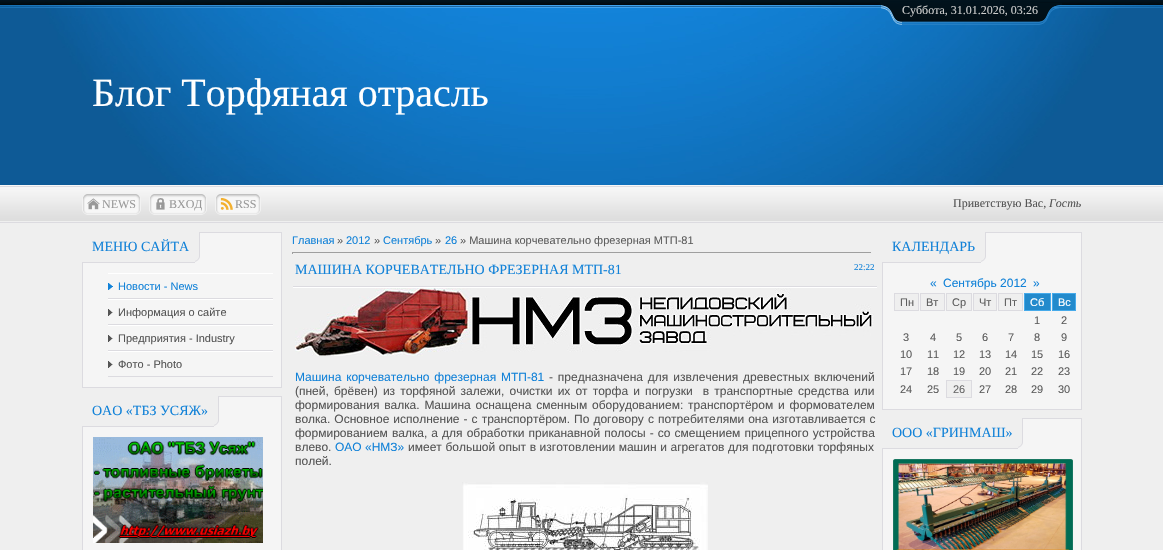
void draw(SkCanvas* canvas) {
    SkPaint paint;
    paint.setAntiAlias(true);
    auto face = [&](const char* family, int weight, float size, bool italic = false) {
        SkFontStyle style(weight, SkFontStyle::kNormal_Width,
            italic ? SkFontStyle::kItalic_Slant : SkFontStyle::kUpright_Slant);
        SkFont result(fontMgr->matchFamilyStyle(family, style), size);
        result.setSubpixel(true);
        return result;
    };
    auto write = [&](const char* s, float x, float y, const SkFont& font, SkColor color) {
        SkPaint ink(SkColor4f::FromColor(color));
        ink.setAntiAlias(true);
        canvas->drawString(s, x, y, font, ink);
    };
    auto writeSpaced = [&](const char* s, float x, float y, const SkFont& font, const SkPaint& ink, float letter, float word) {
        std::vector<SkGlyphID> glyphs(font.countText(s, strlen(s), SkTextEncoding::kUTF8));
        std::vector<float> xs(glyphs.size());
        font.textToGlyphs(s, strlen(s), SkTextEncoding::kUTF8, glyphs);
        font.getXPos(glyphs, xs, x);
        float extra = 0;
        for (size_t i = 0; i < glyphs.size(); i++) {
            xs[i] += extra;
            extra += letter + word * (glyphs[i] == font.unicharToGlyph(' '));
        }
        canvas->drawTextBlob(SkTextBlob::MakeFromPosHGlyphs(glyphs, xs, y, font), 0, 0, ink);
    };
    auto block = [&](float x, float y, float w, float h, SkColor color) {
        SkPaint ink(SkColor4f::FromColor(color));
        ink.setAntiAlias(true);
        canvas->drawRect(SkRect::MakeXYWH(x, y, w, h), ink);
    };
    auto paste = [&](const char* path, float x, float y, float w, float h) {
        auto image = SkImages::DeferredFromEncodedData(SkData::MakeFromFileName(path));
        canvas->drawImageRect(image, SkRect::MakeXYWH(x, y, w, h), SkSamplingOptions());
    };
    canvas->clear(SkColorSetRGB(239, 239, 239));
    paste("pic1.png", 0, 185, 1163, 38);
    paste("pic2.png", 0, 0, 1163, 185);
    paste("pic3.png", 880, 2, 22, 23);
    paste("pic4.png", 902, 2, 137, 23);
    auto kFont1 = face("Liberation Serif", 400, 12);
    write("Суббота, 31.01.2026, 03:26", 902, 14, kFont1, SkColorSetRGB(204, 204, 204));
    paste("pic5.png", 1039, 3, 23, 22);
    auto kFont2 = face("Liberation Serif", 400, 40);
    write("Блог Торфяная отрасль", 92, 106, kFont2, SK_ColorWHITE);
    paste("pic6.png", 82, 194, 5, 21);
    paste("pic7.png", 87, 194, 49, 21);
    paste("pic8.png", 87, 198, 13, 12);
    write("NEWS", 102, 208, kFont1, SkColorSetRGB(153, 153, 153));
    paste("pic9.png", 136, 194, 5, 21);
    paste("pic6.png", 149, 194, 5, 21);
    paste("pic10.png", 154, 194, 48, 21);
    paste("pic11.png", 156, 198, 9, 12);
    write("ВХОД", 169, 208, kFont1, SkColorSetRGB(153, 153, 153));
    paste("pic9.png", 202, 194, 5, 21);
    paste("pic6.png", 215, 194, 5, 21);
    paste("pic12.png", 220, 194, 36, 21);
    paste("pic13.png", 220, 197, 13, 13);
    write("RSS", 235, 208, kFont1, SkColorSetRGB(153, 153, 153));
    paste("pic9.png", 256, 194, 5, 21);
    write("Приветствую Вас,", 953, 207, kFont1, SkColorSetRGB(85, 85, 85));
    auto kFont3 = face("Liberation Serif", 400, 12, true);
    write("Гость", 1049, 207, kFont3, SkColorSetRGB(85, 85, 85));
    block(83, 233, 198, 154, SkColorSetRGB(245, 245, 245));
    block(200, 232, 82, 1, SkColorSetRGB(220, 219, 224));
    block(281, 232, 1, 156, SkColorSetRGB(220, 219, 224));
    block(83, 233, 112, 29, SkColorSetRGB(239, 239, 239));
    block(82, 262, 113, 1, SkColorSetRGB(220, 219, 224));
    auto kFont4 = face("Liberation Serif", 400, 14);
    write("МЕНЮ САЙТА", 92, 251, kFont4, SkColorSetRGB(18, 130, 216));
    paste("pic14.png", 195, 232, 5, 30);
    block(82, 387, 200, 1, SkColorSetRGB(220, 219, 224));
    block(82, 263, 1, 125, SkColorSetRGB(220, 219, 224));
    block(108, 273, 165, 1, SK_ColorWHITE);
    block(108, 298, 165, 1, SkColorSetRGB(220, 219, 224));
    paste("pic15.png", 108, 283, 5, 7);
    auto kFont5 = face("Liberation Sans", 400, 11);
    write("Новости - News", 118, 290, kFont5, SkColorSetRGB(18, 130, 216));
    block(108, 299, 165, 1, SK_ColorWHITE);
    block(108, 324, 165, 1, SkColorSetRGB(220, 219, 224));
    paste("pic16.png", 108, 309, 5, 7);
    write("Информация о сайте", 118, 316, kFont5, SkColorSetRGB(85, 85, 85));
    block(108, 325, 165, 1, SK_ColorWHITE);
    block(108, 350, 165, 1, SkColorSetRGB(220, 219, 224));
    paste("pic16.png", 108, 335, 5, 7);
    write("Предприятия - Industry", 118, 342, kFont5, SkColorSetRGB(85, 85, 85));
    block(108, 351, 165, 1, SK_ColorWHITE);
    block(108, 376, 165, 1, SkColorSetRGB(220, 219, 224));
    paste("pic16.png", 108, 361, 5, 7);
    write("Фото - Photo", 118, 368, kFont5, SkColorSetRGB(85, 85, 85));
    block(83, 397, 198, 153, SkColorSetRGB(245, 245, 245));
    block(219, 396, 63, 1, SkColorSetRGB(220, 219, 224));
    block(281, 396, 1, 154, SkColorSetRGB(220, 219, 224));
    block(83, 397, 131, 29, SkColorSetRGB(239, 239, 239));
    block(82, 426, 132, 1, SkColorSetRGB(220, 219, 224));
    write("ОАО «ТБЗ УСЯЖ»", 92, 415, kFont4, SkColorSetRGB(18, 130, 216));
    paste("pic14.png", 214, 396, 5, 30);
    block(82, 427, 1, 123, SkColorSetRGB(220, 219, 224));
    paste("pic17.png", 93, 437, 170, 106);
    write("Главная", 292, 244, kFont5, SkColorSetRGB(18, 130, 216));
    write("»", 337, 244, kFont5, SkColorSetRGB(93, 93, 93));
    write("2012", 346, 244, kFont5, SkColorSetRGB(18, 130, 216));
    write("»", 374, 244, kFont5, SkColorSetRGB(93, 93, 93));
    write("Сентябрь", 383, 244, kFont5, SkColorSetRGB(18, 130, 216));
    write("»", 435, 244, kFont5, SkColorSetRGB(93, 93, 93));
    write("26", 445, 244, kFont5, SkColorSetRGB(18, 130, 216));
    write("» Машина корчевательно фрезерная МТП-81", 460, 244, kFont5, SkColorSetRGB(93, 93, 93));
    block(292, 252, 580, 1, SkColorSetRGB(159, 159, 159));
    block(871, 252, 1, 2, SkColorSetRGB(238, 238, 238));
    block(292, 252, 1, 2, SkColorSetRGB(159, 159, 159));
    write("МАШИНА КОРЧЕВАТЕЛЬНО ФРЕЗЕРНАЯ МТП-81", 295, 274, kFont4, SkColorSetRGB(18, 130, 216));
    auto kFont6 = face("Liberation Serif", 400, 9);
    write("22:22", 854, 270, kFont6, SkColorSetRGB(18, 130, 216));
    paste("pic18.png", 293, 286, 584, 2);
    paste("pic19.png", 295, 288, 579, 68);
    auto kFont7 = face("Liberation Sans", 400, 12);
    paint.setColor(SkColorSetRGB(18, 130, 216));
    writeSpaced("Машина корчевательно фрезерная МТП-81", 295, 381, kFont7, paint, 0, 1.5f);
    paint.setColor(SkColorSetRGB(85, 85, 85));
    writeSpaced("- предназначена для извлечения древестных включений", 549, 381, kFont7, paint, 0, 1.5f);
    writeSpaced("(пней, брёвен) из торфяной залежи, очистки их от торфа и погрузки  в транспортные средства или", 295, 395, kFont7, paint, 0, 1.75f);
    writeSpaced("формирования валка. Машина оснащена сменным оборудованием: транспортёром и формователем", 295, 409, kFont7, paint, 0, 1.5f);
    writeSpaced("волка. Основное исполнение - с транспортёром. По договору с потребителями она изготавливается с", 295, 423, kFont7, paint, 0, 0.7f);
    writeSpaced("формированием валка, а для обработки приканавной полосы - со смещением прицепного устройства", 295, 437, kFont7, paint, 0, 0.75f);
    write("влево.", 295, 451, kFont7, SkColorSetRGB(85, 85, 85));
    write("ОАО «НМЗ»", 335, 451, kFont7, SkColorSetRGB(18, 130, 216));
    writeSpaced("имеет большой опыт в изготовлении машин и агрегатов для подготовки торфяных", 408, 451, kFont7, paint, 0, 0.25f);
    write("полей.", 295, 465, kFont7, SkColorSetRGB(85, 85, 85));
    paste("pic20.png", 462, 482, 246, 68);
    block(883, 233, 198, 176, SkColorSetRGB(245, 245, 245));
    block(986, 232, 96, 1, SkColorSetRGB(220, 219, 224));
    block(1081, 232, 1, 178, SkColorSetRGB(220, 219, 224));
    block(883, 233, 98, 29, SkColorSetRGB(239, 239, 239));
    block(882, 262, 99, 1, SkColorSetRGB(220, 219, 224));
    write("КАЛЕНДАРЬ", 892, 251, kFont4, SkColorSetRGB(18, 130, 216));
    paste("pic14.png", 981, 232, 5, 30);
    block(882, 409, 200, 1, SkColorSetRGB(220, 219, 224));
    block(882, 263, 1, 147, SkColorSetRGB(220, 219, 224));
    write("«", 930, 287, kFont7, SkColorSetRGB(18, 130, 216));
    write("Сентябрь 2012", 943, 287, kFont7, SkColorSetRGB(18, 130, 216));
    write("»", 1033, 287, kFont7, SkColorSetRGB(18, 130, 216));
    paint.setColor(SkColorSetRGB(239, 239, 239));
    canvas->drawRect(SkRect::MakeXYWH(894.5f, 293.5f, 24, 17), paint);
    paint.setStyle(SkPaint::kStroke_Style);
    paint.setStrokeWidth(1);
    paint.setColor(SkColorSetRGB(220, 219, 224));
    canvas->drawRect(SkRect::MakeXYWH(894.5f, 293.5f, 24, 17), paint);
    write("Пн", 900, 306, kFont5, SkColorSetRGB(93, 93, 93));
    paint.setStyle(SkPaint::kFill_Style);
    paint.setColor(SkColorSetRGB(239, 239, 239));
    canvas->drawRect(SkRect::MakeXYWH(920.5f, 293.5f, 24, 17), paint);
    paint.setStyle(SkPaint::kStroke_Style);
    paint.setColor(SkColorSetRGB(220, 219, 224));
    canvas->drawRect(SkRect::MakeXYWH(920.5f, 293.5f, 24, 17), paint);
    write("Вт", 926, 306, kFont5, SkColorSetRGB(93, 93, 93));
    paint.setStyle(SkPaint::kFill_Style);
    paint.setColor(SkColorSetRGB(239, 239, 239));
    canvas->drawRect(SkRect::MakeXYWH(946.5f, 293.5f, 25, 17), paint);
    paint.setStyle(SkPaint::kStroke_Style);
    paint.setColor(SkColorSetRGB(220, 219, 224));
    canvas->drawRect(SkRect::MakeXYWH(946.5f, 293.5f, 25, 17), paint);
    write("Ср", 952, 306, kFont5, SkColorSetRGB(93, 93, 93));
    paint.setStyle(SkPaint::kFill_Style);
    paint.setColor(SkColorSetRGB(239, 239, 239));
    canvas->drawRect(SkRect::MakeXYWH(973.5f, 293.5f, 23, 17), paint);
    paint.setStyle(SkPaint::kStroke_Style);
    paint.setColor(SkColorSetRGB(220, 219, 224));
    canvas->drawRect(SkRect::MakeXYWH(973.5f, 293.5f, 23, 17), paint);
    write("Чт", 979, 306, kFont5, SkColorSetRGB(93, 93, 93));
    paint.setStyle(SkPaint::kFill_Style);
    paint.setColor(SkColorSetRGB(239, 239, 239));
    canvas->drawRect(SkRect::MakeXYWH(998.5f, 293.5f, 24, 17), paint);
    paint.setStyle(SkPaint::kStroke_Style);
    paint.setColor(SkColorSetRGB(220, 219, 224));
    canvas->drawRect(SkRect::MakeXYWH(998.5f, 293.5f, 24, 17), paint);
    write("Пт", 1004, 306, kFont5, SkColorSetRGB(93, 93, 93));
    paint.setStyle(SkPaint::kFill_Style);
    paint.setColor(SkColorSetRGB(34, 138, 204));
    canvas->drawRect(SkRect::MakeXYWH(1024.5f, 293.5f, 26, 17), paint);
    paint.setStyle(SkPaint::kStroke_Style);
    paint.setColor(SkColorSetRGB(70, 170, 234));
    canvas->drawRect(SkRect::MakeXYWH(1024.5f, 293.5f, 26, 17), paint);
    write("Сб", 1030, 306, kFont5, SK_ColorWHITE);
    paint.setStyle(SkPaint::kFill_Style);
    paint.setColor(SkColorSetRGB(34, 138, 204));
    canvas->drawRect(SkRect::MakeXYWH(1052.5f, 293.5f, 23, 17), paint);
    paint.setStyle(SkPaint::kStroke_Style);
    paint.setColor(SkColorSetRGB(70, 170, 234));
    canvas->drawRect(SkRect::MakeXYWH(1052.5f, 293.5f, 23, 17), paint);
    write("Вс", 1058, 306, kFont5, SK_ColorWHITE);
    write("1", 1034, 324, kFont5, SkColorSetRGB(93, 93, 93));
    write("2", 1061, 324, kFont5, SkColorSetRGB(93, 93, 93));
    write("3", 903, 341, kFont5, SkColorSetRGB(93, 93, 93));
    write("4", 930, 341, kFont5, SkColorSetRGB(93, 93, 93));
    write("5", 956, 341, kFont5, SkColorSetRGB(93, 93, 93));
    write("6", 982, 341, kFont5, SkColorSetRGB(93, 93, 93));
    write("7", 1008, 341, kFont5, SkColorSetRGB(93, 93, 93));
    write("8", 1034, 341, kFont5, SkColorSetRGB(93, 93, 93));
    write("9", 1061, 341, kFont5, SkColorSetRGB(93, 93, 93));
    write("10", 900, 358, kFont5, SkColorSetRGB(93, 93, 93));
    write("11", 927, 358, kFont5, SkColorSetRGB(93, 93, 93));
    write("12", 953, 358, kFont5, SkColorSetRGB(93, 93, 93));
    write("13", 979, 358, kFont5, SkColorSetRGB(93, 93, 93));
    write("14", 1005, 358, kFont5, SkColorSetRGB(93, 93, 93));
    write("15", 1031, 358, kFont5, SkColorSetRGB(93, 93, 93));
    write("16", 1058, 358, kFont5, SkColorSetRGB(93, 93, 93));
    write("17", 900, 375, kFont5, SkColorSetRGB(93, 93, 93));
    write("18", 927, 375, kFont5, SkColorSetRGB(93, 93, 93));
    write("19", 953, 375, kFont5, SkColorSetRGB(93, 93, 93));
    write("20", 979, 375, kFont5, SkColorSetRGB(93, 93, 93));
    write("21", 1005, 375, kFont5, SkColorSetRGB(93, 93, 93));
    write("22", 1031, 375, kFont5, SkColorSetRGB(93, 93, 93));
    write("23", 1058, 375, kFont5, SkColorSetRGB(93, 93, 93));
    write("24", 900, 393, kFont5, SkColorSetRGB(93, 93, 93));
    write("25", 927, 393, kFont5, SkColorSetRGB(93, 93, 93));
    paint.setStyle(SkPaint::kFill_Style);
    paint.setColor(SkColorSetRGB(239, 239, 239));
    canvas->drawRect(SkRect::MakeXYWH(946.5f, 380.5f, 25, 17), paint);
    paint.setStyle(SkPaint::kStroke_Style);
    paint.setColor(SkColorSetRGB(220, 219, 224));
    canvas->drawRect(SkRect::MakeXYWH(946.5f, 380.5f, 25, 17), paint);
    write("26", 953, 393, kFont5, SkColorSetRGB(106, 106, 106));
    write("27", 979, 393, kFont5, SkColorSetRGB(93, 93, 93));
    write("28", 1005, 393, kFont5, SkColorSetRGB(93, 93, 93));
    write("29", 1031, 393, kFont5, SkColorSetRGB(93, 93, 93));
    write("30", 1058, 393, kFont5, SkColorSetRGB(93, 93, 93));
    block(883, 419, 198, 131, SkColorSetRGB(245, 245, 245));
    block(1023, 418, 59, 1, SkColorSetRGB(220, 219, 224));
    block(1081, 418, 1, 132, SkColorSetRGB(220, 219, 224));
    block(883, 419, 135, 29, SkColorSetRGB(239, 239, 239));
    block(882, 448, 136, 1, SkColorSetRGB(220, 219, 224));
    write("ООО «ГРИНМАШ»", 892, 437, kFont4, SkColorSetRGB(18, 130, 216));
    paste("pic14.png", 1018, 418, 5, 30);
    block(882, 449, 1, 101, SkColorSetRGB(220, 219, 224));
    paste("pic21.png", 893, 459, 180, 91);
}
